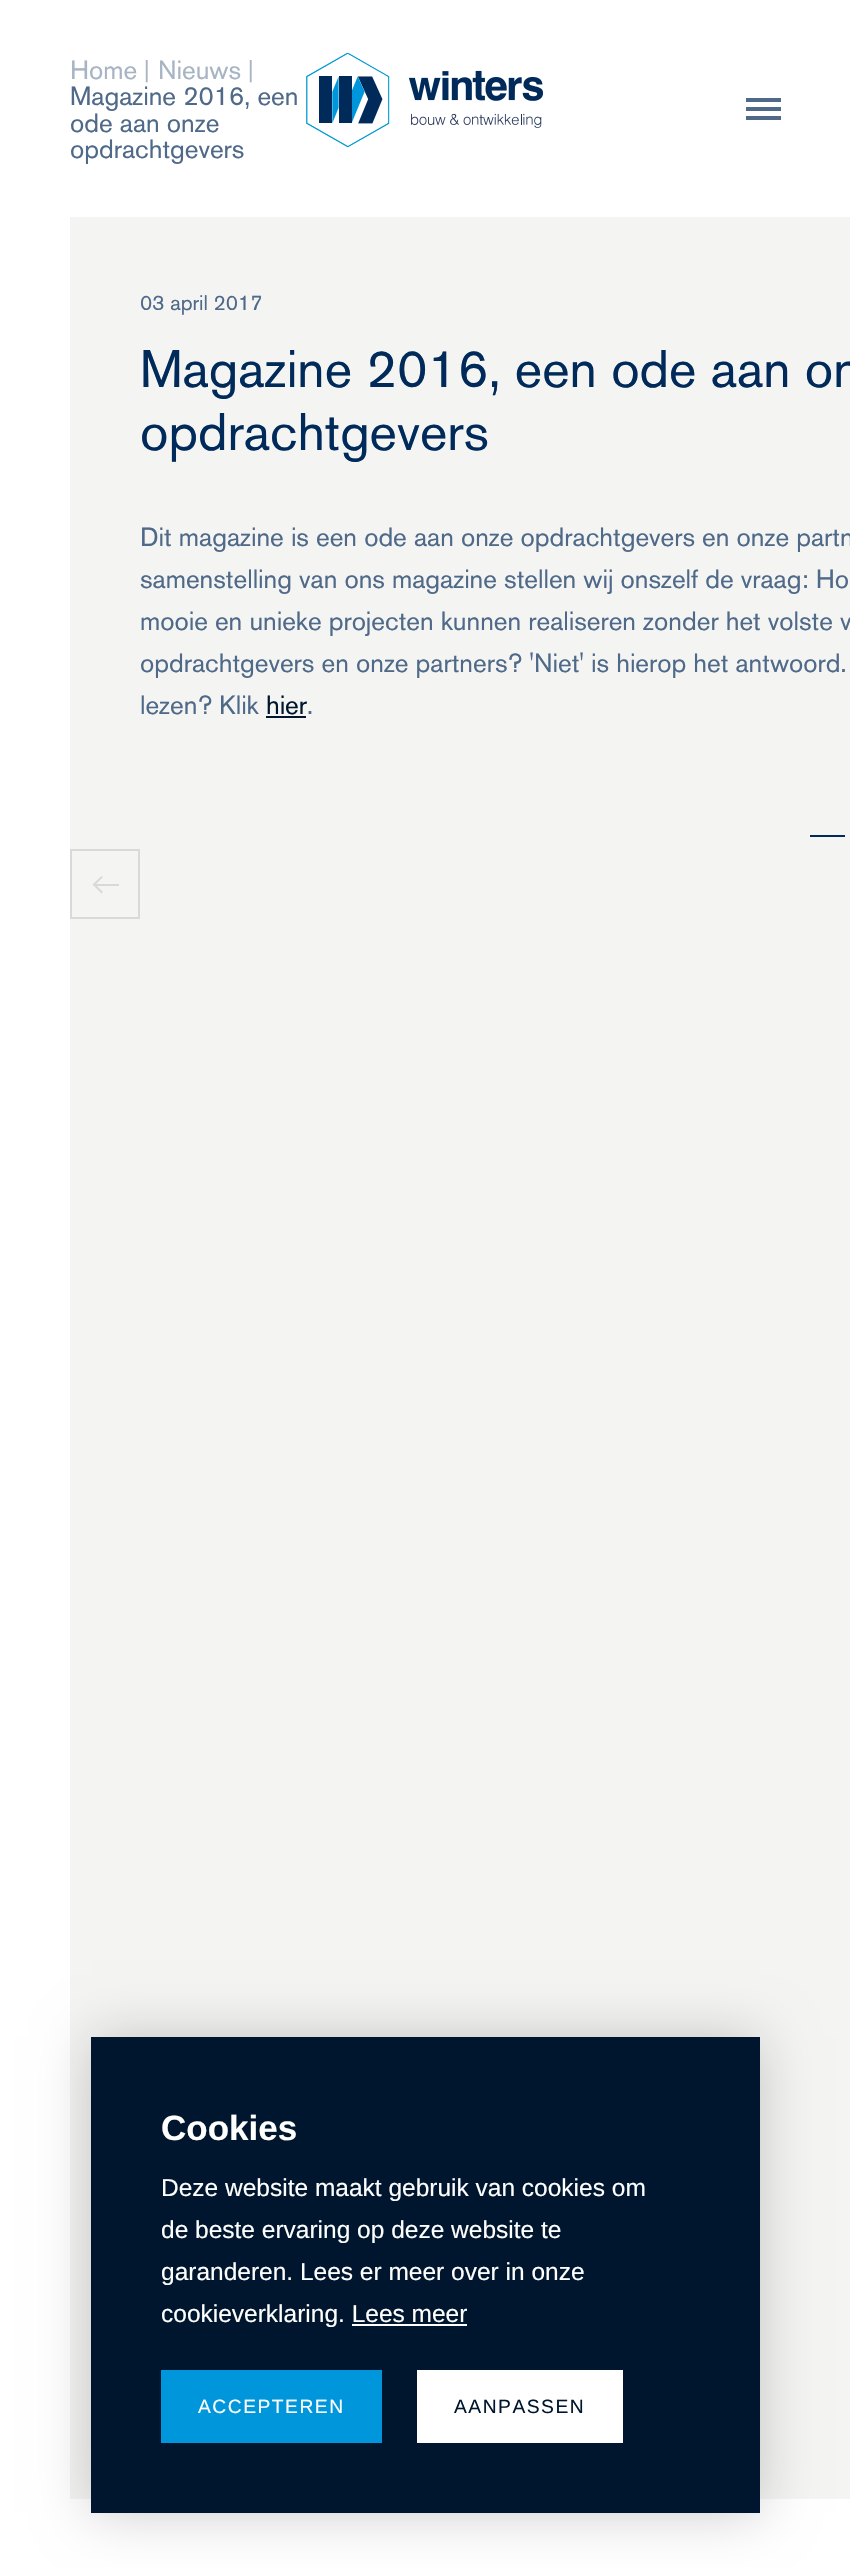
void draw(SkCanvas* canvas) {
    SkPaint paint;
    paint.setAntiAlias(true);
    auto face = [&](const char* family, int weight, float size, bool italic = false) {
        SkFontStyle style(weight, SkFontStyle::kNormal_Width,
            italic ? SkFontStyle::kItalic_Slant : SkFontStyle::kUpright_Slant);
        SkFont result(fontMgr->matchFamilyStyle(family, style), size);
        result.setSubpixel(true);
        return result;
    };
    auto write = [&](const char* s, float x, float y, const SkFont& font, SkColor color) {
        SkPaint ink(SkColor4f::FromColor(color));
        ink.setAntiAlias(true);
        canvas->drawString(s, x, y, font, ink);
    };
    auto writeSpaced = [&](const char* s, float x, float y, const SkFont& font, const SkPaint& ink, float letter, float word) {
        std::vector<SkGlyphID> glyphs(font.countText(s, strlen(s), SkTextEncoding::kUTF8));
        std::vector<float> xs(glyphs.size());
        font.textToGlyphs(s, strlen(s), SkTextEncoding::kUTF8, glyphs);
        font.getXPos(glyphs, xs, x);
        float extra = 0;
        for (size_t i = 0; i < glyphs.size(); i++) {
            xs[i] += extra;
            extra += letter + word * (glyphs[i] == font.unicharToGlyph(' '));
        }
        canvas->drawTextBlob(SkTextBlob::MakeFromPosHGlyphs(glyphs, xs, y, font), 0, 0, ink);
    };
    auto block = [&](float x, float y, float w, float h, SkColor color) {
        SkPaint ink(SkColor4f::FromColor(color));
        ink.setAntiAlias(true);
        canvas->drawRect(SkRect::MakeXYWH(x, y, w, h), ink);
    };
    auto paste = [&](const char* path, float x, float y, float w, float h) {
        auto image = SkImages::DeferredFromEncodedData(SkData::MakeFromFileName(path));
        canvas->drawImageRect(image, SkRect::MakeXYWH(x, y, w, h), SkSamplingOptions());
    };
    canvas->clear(SK_ColorWHITE);
    auto kFont1 = face("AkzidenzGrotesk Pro", 400, 26.25f);
    write("Home", 70, 79, kFont1, SkColorSetRGB(167, 180, 196));
    auto kFont2 = face("Liberation Serif", 700, 24.5f);
    write("|", 144, 77, kFont2, SkColorSetRGB(167, 180, 196));
    write("Nieuws", 158, 79, kFont1, SkColorSetRGB(167, 180, 196));
    write("|", 248, 77, kFont2, SkColorSetRGB(167, 180, 196));
    write("Magazine 2016, een", 70, 105, kFont1, SkColorSetRGB(79, 105, 137));
    write("ode aan onze", 70, 132, kFont1, SkColorSetRGB(79, 105, 137));
    write("opdrachtgevers", 70, 158, kFont1, SkColorSetRGB(79, 105, 137));
    paste("pic1.png", 306, 53, 237, 95);
    block(746, 107, 35, 4, SkColorSetRGB(79, 105, 137));
    block(746, 98, 35, 4, SkColorSetRGB(79, 105, 137));
    block(746, 116, 35, 4, SkColorSetRGB(79, 105, 137));
    block(70, 217, 780, 2282, SkColorSetRGB(244, 244, 243));
    auto kFont3 = face("AkzidenzGrotesk Pro", 400, 21);
    write("03 april 2017", 140, 310, kFont3, SkColorSetRGB(79, 105, 137));
    auto kFont4 = face("AkzidenzGrotesk Pro", 400, 52.5f);
    write("Magazine 2016, een ode aan on", 140, 387, kFont4, SkColorSetRGB(0, 42, 90));
    write("opdrachtgevers", 140, 450, kFont4, SkColorSetRGB(0, 42, 90));
    write("Dit magazine is een ode aan onze opdrachtgevers en onze partn", 140, 546, kFont1, SkColorSetRGB(79, 105, 137));
    write("samenstelling van ons magazine stellen wij onszelf de vraag: Ho", 140, 588, kFont1, SkColorSetRGB(79, 105, 137));
    write("mooie en unieke projecten kunnen realiseren zonder het volste v", 140, 630, kFont1, SkColorSetRGB(79, 105, 137));
    write("opdrachtgevers en onze partners? 'Niet' is hierop het antwoord.", 140, 672, kFont1, SkColorSetRGB(79, 105, 137));
    write("lezen? Klik", 140, 714, kFont1, SkColorSetRGB(79, 105, 137));
    write("hier", 266, 714, kFont1, SkColorSetRGB(0, 22, 46));
    block(266, 716, 40, 2, SkColorSetRGB(0, 22, 46));
    write(".", 307, 714, kFont1, SkColorSetRGB(79, 105, 137));
    block(810, 835, 35, 2, SkColorSetRGB(0, 42, 90));
    paint.setStyle(SkPaint::kStroke_Style);
    paint.setStrokeWidth(2);
    paint.setColor(SkColorSetRGB(217, 217, 217));
    canvas->drawRect(SkRect::MakeXYWH(71, 850, 68, 68), paint);
    block(94, 884, 25, 2, SkColorSetRGB(217, 217, 217));
    paint.setStyle(SkPaint::kFill_Style);
    canvas->drawPath(SkPathBuilder().moveTo(92.5f, 884.5f).lineTo(101.5f, 876).lineTo(103, 877).lineTo(95.5f, 884.5f).lineTo(103, 892).lineTo(101.5f, 893.5f).close().detach(), paint);
    paint.setColor(SkColorSetARGB(51, 0, 0, 0));
    paint.setMaskFilter(SkMaskFilter::MakeBlur(kNormal_SkBlurStyle, 26));
    canvas->drawRect(SkRect::MakeXYWH(91, 2037, 669, 476), paint);
    paint.setMaskFilter(nullptr);
    block(91, 2037, 669, 476, SkColorSetRGB(0, 22, 46));
    auto kFont5 = face("Liberation Sans", 700, 35);
    write("Cookies", 161, 2140, kFont5, SK_ColorWHITE);
    auto kFont6 = face("Liberation Sans", 400, 24.5f);
    write("Deze website maakt gebruik van cookies om", 161, 2196, kFont6, SK_ColorWHITE);
    write("de beste ervaring op deze website te", 161, 2238, kFont6, SK_ColorWHITE);
    write("garanderen. Lees er meer over in onze", 161, 2280, kFont6, SK_ColorWHITE);
    write("cookieverklaring. Lees meer", 161, 2322, kFont6, SK_ColorWHITE);
    block(352, 2324, 115, 2, SK_ColorWHITE);
    block(161, 2370, 221, 73, SkColorSetRGB(0, 150, 219));
    auto kFont7 = face("Liberation Sans", 400, 19.25f);
    paint.setColor(SK_ColorWHITE);
    writeSpaced("ACCEPTEREN", 198, 2413, kFont7, paint, 1.5f, 0);
    block(417, 2370, 206, 73, SK_ColorWHITE);
    paint.setColor(SkColorSetRGB(0, 22, 46));
    writeSpaced("AANPASSEN", 454, 2413, kFont7, paint, 1.5f, 0);
}
